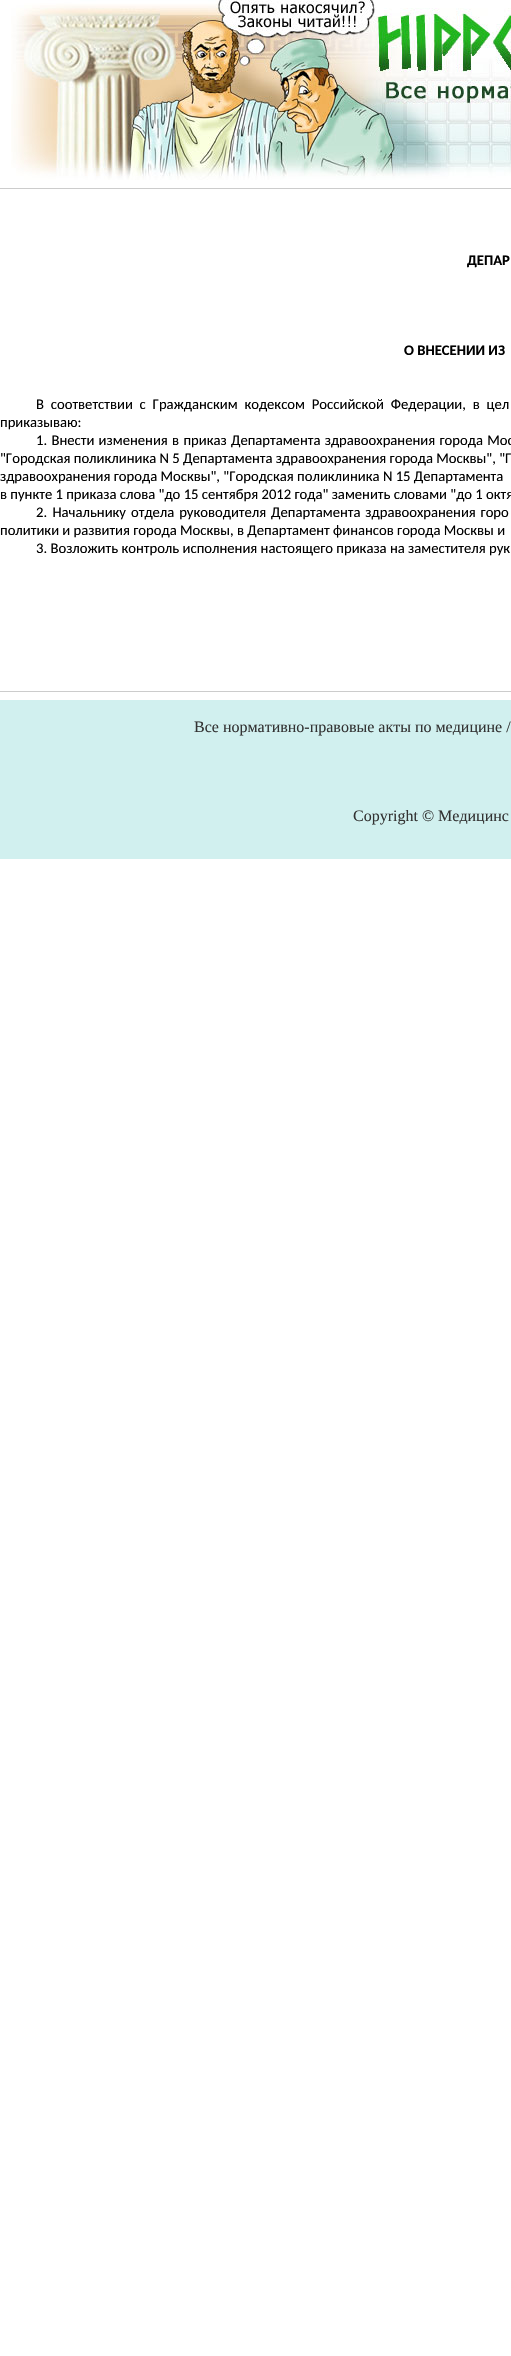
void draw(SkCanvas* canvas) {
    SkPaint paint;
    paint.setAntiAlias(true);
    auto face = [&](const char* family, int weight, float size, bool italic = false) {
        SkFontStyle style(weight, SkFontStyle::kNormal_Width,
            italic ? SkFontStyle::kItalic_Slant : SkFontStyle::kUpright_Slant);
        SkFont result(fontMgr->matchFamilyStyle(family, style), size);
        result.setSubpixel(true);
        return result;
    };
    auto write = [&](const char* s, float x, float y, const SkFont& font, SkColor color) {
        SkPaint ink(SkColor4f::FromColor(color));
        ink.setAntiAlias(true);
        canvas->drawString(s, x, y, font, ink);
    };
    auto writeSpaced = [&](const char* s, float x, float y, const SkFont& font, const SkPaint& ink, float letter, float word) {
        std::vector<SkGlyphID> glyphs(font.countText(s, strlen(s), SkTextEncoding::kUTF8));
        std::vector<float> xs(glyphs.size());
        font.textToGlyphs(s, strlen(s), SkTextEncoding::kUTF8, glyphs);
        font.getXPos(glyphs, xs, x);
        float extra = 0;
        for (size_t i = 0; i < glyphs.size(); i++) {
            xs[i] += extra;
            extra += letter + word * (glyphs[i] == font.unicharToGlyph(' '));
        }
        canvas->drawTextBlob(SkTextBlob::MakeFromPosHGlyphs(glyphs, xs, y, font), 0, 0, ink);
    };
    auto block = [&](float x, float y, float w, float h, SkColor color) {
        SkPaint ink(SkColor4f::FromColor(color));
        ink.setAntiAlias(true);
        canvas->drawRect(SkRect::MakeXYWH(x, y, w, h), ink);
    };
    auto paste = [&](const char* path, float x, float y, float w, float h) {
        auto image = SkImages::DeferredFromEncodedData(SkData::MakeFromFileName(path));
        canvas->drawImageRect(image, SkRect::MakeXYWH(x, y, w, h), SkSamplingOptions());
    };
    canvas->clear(SK_ColorWHITE);
    paste("pic1.png", 11, 0, 500, 180);
    block(0, 188, 511, 1, SkColorSetRGB(204, 204, 204));
    auto kFont1 = face("Carlito", 700, 14.65f);
    write("ДЕПАР", 467, 265, kFont1, SK_ColorBLACK);
    write("О ВНЕСЕНИИ ИЗ", 404, 355, kFont1, SK_ColorBLACK);
    auto kFont2 = face("Carlito", 400, 14.65f);
    paint.setColor(SK_ColorBLACK);
    writeSpaced("В соответствии с Гражданским кодексом Российской Федерации, в цел", 36, 409, kFont2, paint, 0, 3.5f);
    write("приказываю:", 0, 427, kFont2, SK_ColorBLACK);
    writeSpaced("1. Внести изменения в приказ Департамента здравоохранения города Мос", 36, 445, kFont2, paint, 0, 1);
    write("\"Городская поликлиника N 5 Департамента здравоохранения города Москвы\", \"Г", 0, 463, kFont2, SK_ColorBLACK);
    write("здравоохранения города Москвы\", \"Городская поликлиника N 15 Департамента", 0, 481, kFont2, SK_ColorBLACK);
    write("в пункте 1 приказа слова \"до 15 сентября 2012 года\" заменить словами \"до 1 октя", 0, 499, kFont2, SK_ColorBLACK);
    writeSpaced("2. Начальнику", 36, 517, kFont2, paint, 0, 2);
    writeSpaced("отдела руководителя Департамента здравоохранения горо", 131, 517, kFont2, paint, 0, 1.5f);
    write("политики и развития города Москвы, в Департамент финансов города Москвы и", 0, 535, kFont2, SK_ColorBLACK);
    write("3. Возложить контроль исполнения настоящего приказа на заместителя рук", 36, 553, kFont2, SK_ColorBLACK);
    block(0, 691, 511, 1, SkColorSetRGB(204, 204, 204));
    block(0, 700, 511, 159, SkColorSetRGB(209, 240, 239));
    auto kFont3 = face("Liberation Serif", 400, 16);
    write("Все нормативно-правовые акты по медицине /", 194, 732, kFont3, SkColorSetRGB(51, 51, 51));
    write("Copyright © Медицинс", 353, 821, kFont3, SkColorSetRGB(51, 51, 51));
}
